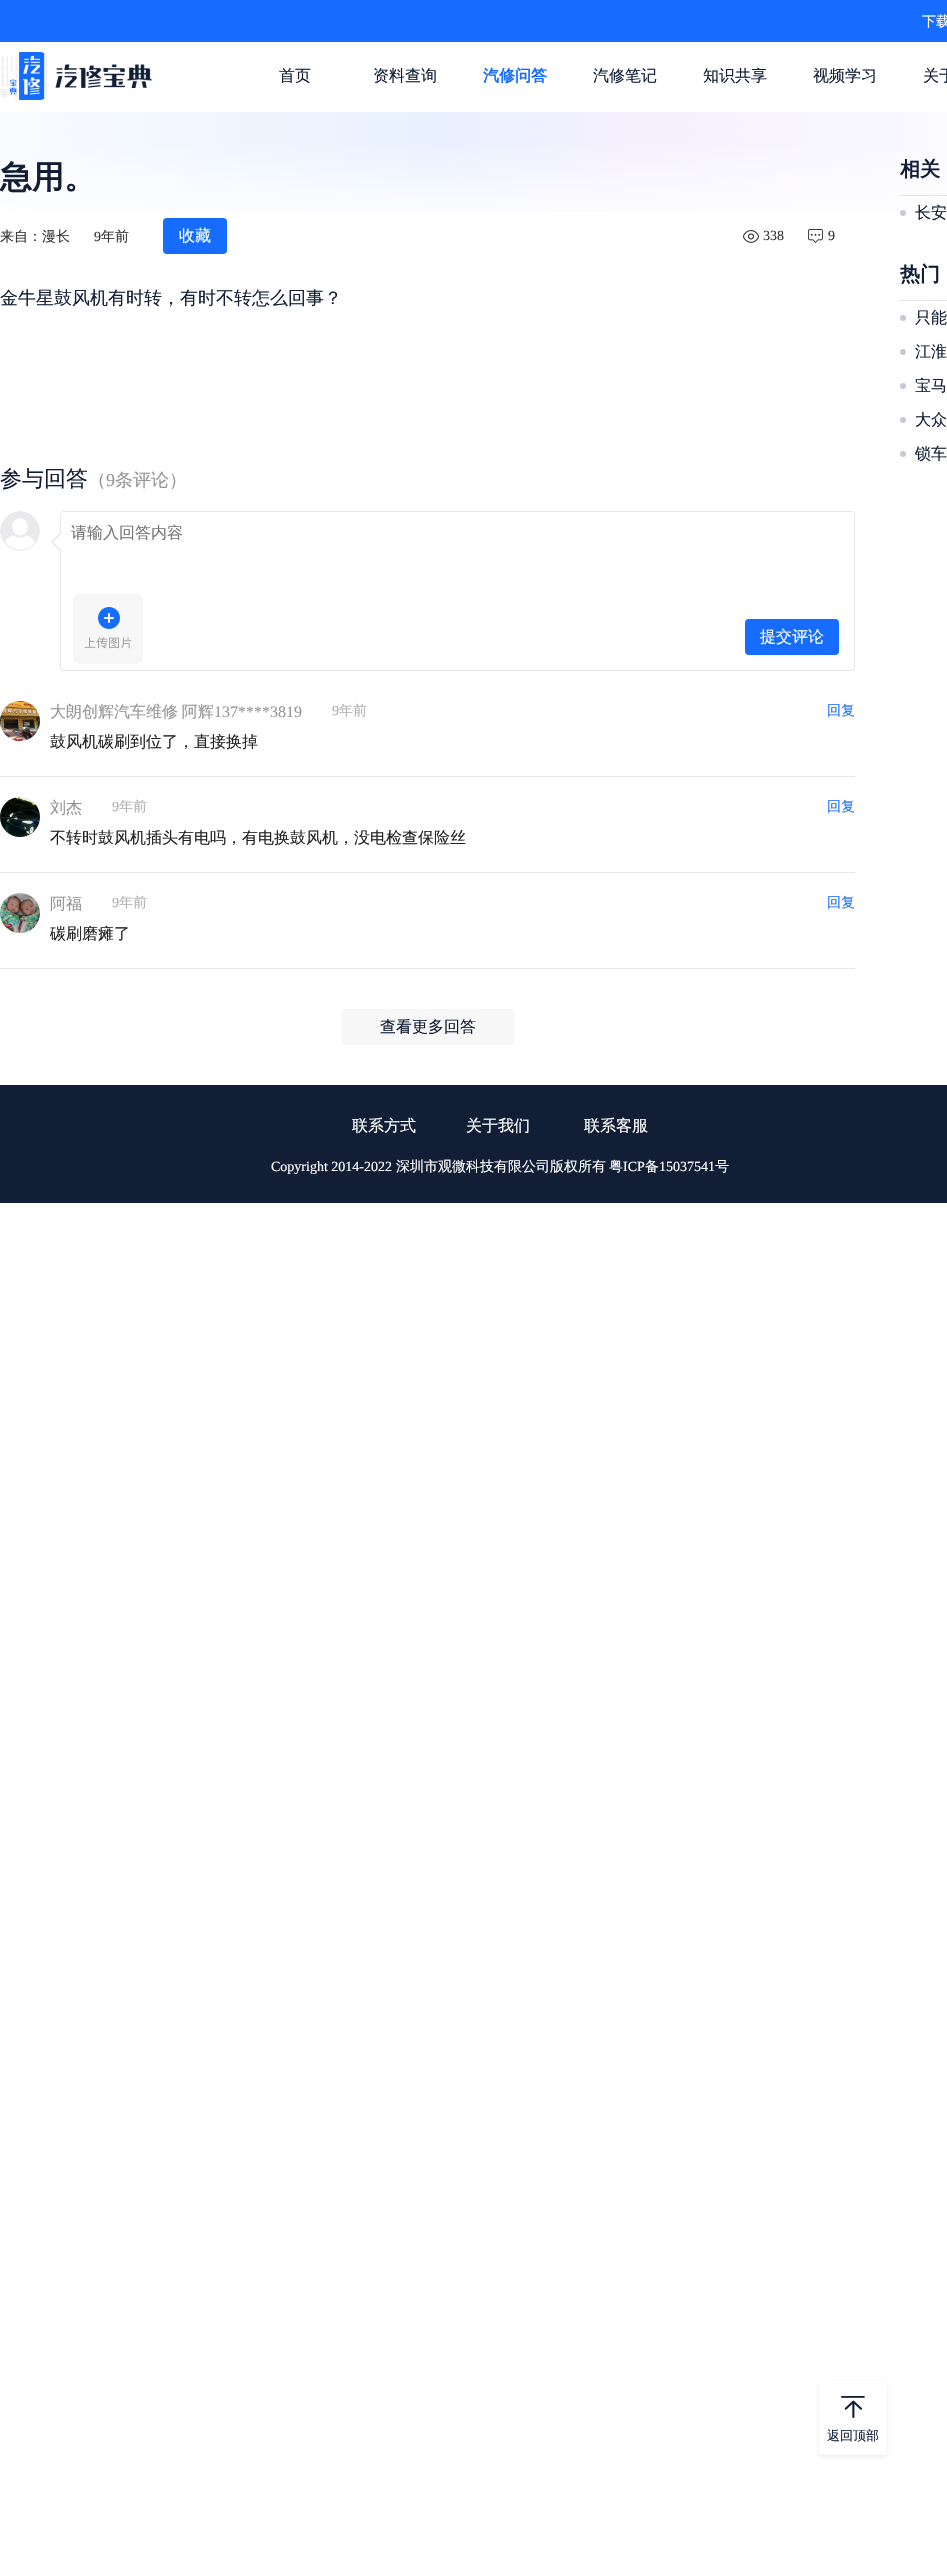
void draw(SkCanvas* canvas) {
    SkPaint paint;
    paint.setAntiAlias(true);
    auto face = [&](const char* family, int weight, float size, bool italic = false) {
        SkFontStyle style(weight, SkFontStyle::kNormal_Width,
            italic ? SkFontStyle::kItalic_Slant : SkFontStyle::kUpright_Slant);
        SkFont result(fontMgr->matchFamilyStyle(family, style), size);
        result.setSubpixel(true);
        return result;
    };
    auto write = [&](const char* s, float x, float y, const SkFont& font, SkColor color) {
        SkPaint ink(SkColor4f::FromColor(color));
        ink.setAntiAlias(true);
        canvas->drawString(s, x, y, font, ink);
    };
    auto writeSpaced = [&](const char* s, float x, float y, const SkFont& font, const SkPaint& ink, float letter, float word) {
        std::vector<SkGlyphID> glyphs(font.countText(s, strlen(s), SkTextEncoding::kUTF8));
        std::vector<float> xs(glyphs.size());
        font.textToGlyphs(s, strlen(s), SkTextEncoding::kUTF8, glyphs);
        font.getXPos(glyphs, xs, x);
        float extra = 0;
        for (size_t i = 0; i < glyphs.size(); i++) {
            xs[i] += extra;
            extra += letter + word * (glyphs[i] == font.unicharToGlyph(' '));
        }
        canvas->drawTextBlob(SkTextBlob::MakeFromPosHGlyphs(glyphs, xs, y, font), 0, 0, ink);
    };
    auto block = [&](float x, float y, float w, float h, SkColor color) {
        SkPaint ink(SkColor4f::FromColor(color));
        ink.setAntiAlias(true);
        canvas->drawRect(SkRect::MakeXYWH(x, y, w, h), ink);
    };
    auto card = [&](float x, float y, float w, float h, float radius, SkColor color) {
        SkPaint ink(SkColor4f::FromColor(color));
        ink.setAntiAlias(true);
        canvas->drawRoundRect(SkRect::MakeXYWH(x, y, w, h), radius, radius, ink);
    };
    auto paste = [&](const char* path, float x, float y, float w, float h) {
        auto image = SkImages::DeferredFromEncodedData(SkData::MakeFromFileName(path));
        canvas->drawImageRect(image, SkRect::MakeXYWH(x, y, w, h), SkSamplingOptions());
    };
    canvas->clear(SK_ColorWHITE);
    block(0, 0, 947, 42, SkColorSetRGB(21, 108, 255));
    auto kFont1 = face("WenQuanYi Zen Hei", 500, 14);
    write("下载", 922, 26, kFont1, SK_ColorWHITE);
    paste("pic1.png", 0, 52, 152, 48);
    auto kFont2 = face("WenQuanYi Zen Hei", 500, 16);
    write("首页", 279, 81, kFont2, SkColorSetRGB(17, 30, 54));
    write("资料查询", 373, 81, kFont2, SkColorSetRGB(17, 30, 54));
    auto kFont3 = face("WenQuanYi Zen Hei", 700, 16);
    write("汽修问答", 483, 81, kFont3, SkColorSetRGB(21, 108, 255));
    write("汽修笔记", 593, 81, kFont2, SkColorSetRGB(17, 30, 54));
    write("知识共享", 703, 81, kFont2, SkColorSetRGB(17, 30, 54));
    write("视频学习", 813, 81, kFont2, SkColorSetRGB(17, 30, 54));
    write("关于", 923, 81, kFont2, SkColorSetRGB(17, 30, 54));
    paste("pic2.png", 0, 112, 947, 100);
    auto kFont4 = face("WenQuanYi Zen Hei", 700, 32);
    write("急用。", 0, 188, kFont4, SkColorSetRGB(17, 30, 54));
    block(900, 195, 47, 1, SkColorSetRGB(230, 230, 230));
    auto kFont5 = face("WenQuanYi Zen Hei", 700, 20);
    write("相关", 900, 176, kFont5, SkColorSetRGB(17, 30, 54));
    paint.setColor(SkColorSetRGB(197, 202, 212));
    canvas->drawCircle(903, 213, 3, paint);
    write("长安", 915, 218, kFont2, SkColorSetRGB(17, 30, 54));
    block(900, 300, 47, 1, SkColorSetRGB(230, 230, 230));
    write("热门", 900, 281, kFont5, SkColorSetRGB(17, 30, 54));
    canvas->drawCircle(903, 318, 3, paint);
    write("只能", 915, 323, kFont2, SkColorSetRGB(17, 30, 54));
    canvas->drawCircle(903, 352, 3, paint);
    write("江淮", 915, 357, kFont2, SkColorSetRGB(17, 30, 54));
    canvas->drawCircle(903, 386, 3, paint);
    write("宝马", 915, 391, kFont2, SkColorSetRGB(17, 30, 54));
    canvas->drawCircle(903, 420, 3, paint);
    write("大众", 915, 425, kFont2, SkColorSetRGB(17, 30, 54));
    canvas->drawCircle(903, 454, 3, paint);
    write("锁车", 915, 459, kFont2, SkColorSetRGB(17, 30, 54));
    write("来自：漫长", 0, 241, kFont1, SkColorSetRGB(51, 51, 51));
    auto kFont6 = face("Liberation Serif", 400, 14);
    write("9", 94, 241, kFont6, SkColorSetRGB(51, 51, 51));
    write("年前", 101, 241, kFont1, SkColorSetRGB(51, 51, 51));
    card(163, 218, 64, 36, 4, SkColorSetRGB(21, 108, 255));
    write("收藏", 179, 241, kFont2, SK_ColorWHITE);
    paste("pic3.png", 743, 230, 16, 13);
    write("338", 763, 240, kFont6, SkColorSetRGB(51, 51, 51));
    paste("pic4.png", 808, 229, 15, 14);
    write("9", 828, 240, kFont6, SkColorSetRGB(51, 51, 51));
    auto kFont7 = face("WenQuanYi Zen Hei", 500, 18);
    write("金牛星鼓风机有时转，有时不转怎么回事？", 0, 304, kFont7, SkColorSetRGB(17, 30, 54));
    auto kFont8 = face("WenQuanYi Zen Hei", 500, 22);
    write("参与回答", 0, 486, kFont8, SkColorSetRGB(17, 30, 54));
    write("（", 88, 486, kFont7, SkColorSetRGB(149, 149, 149));
    auto kFont9 = face("Liberation Serif", 400, 18);
    write("9", 106, 486, kFont9, SkColorSetRGB(149, 149, 149));
    write("条评论）", 115, 486, kFont7, SkColorSetRGB(149, 149, 149));
    paste("pic5.png", 0, 511, 40, 40);
    paint.setStyle(SkPaint::kStroke_Style);
    paint.setStrokeWidth(1);
    paint.setColor(SkColorSetRGB(230, 230, 230));
    canvas->drawRoundRect(SkRect::MakeXYWH(60.5f, 511.5f, 794, 159), 3.5f, 3.5f, paint);
    paint.setStyle(SkPaint::kFill_Style);
    canvas->drawPath(SkPathBuilder().moveTo(61, 532).lineTo(61, 552).lineTo(51, 542).close().detach(), paint);
    block(61, 512, 793, 2, SK_ColorWHITE);
    write("请输入回答内容", 71, 538, kFont2, SkColorSetRGB(117, 117, 117));
    paint.setColor(SK_ColorWHITE);
    canvas->drawPath(SkPathBuilder().moveTo(63, 532).lineTo(63, 552).lineTo(53, 542).close().detach(), paint);
    paste("pic6.png", 73, 594, 70, 70);
    card(745, 619, 94, 36, 4, SkColorSetRGB(21, 108, 255));
    write("提交评论", 760, 642, kFont2, SK_ColorWHITE);
    block(0, 776, 855, 1, SkColorSetRGB(230, 230, 230));
    paste("pic7.png", 0, 701, 40, 40);
    paint.setColor(SkColorSetRGB(149, 149, 149));
    writeSpaced("大朗创辉汽车维修 阿辉", 50, 717, kFont2, paint, 0, -1);
    auto kFont10 = face("Liberation Serif", 400, 16);
    write("137****3819", 214, 717, kFont10, SkColorSetRGB(149, 149, 149));
    write("9", 332, 715, kFont6, SkColorSetRGB(176, 176, 176));
    write("年前", 339, 715, kFont1, SkColorSetRGB(176, 176, 176));
    write("回复", 827, 715, kFont1, SkColorSetRGB(21, 108, 255));
    write("鼓风机碳刷到位了，直接换掉", 50, 747, kFont2, SkColorSetRGB(34, 34, 34));
    block(0, 872, 855, 1, SkColorSetRGB(230, 230, 230));
    paste("pic8.png", 0, 797, 40, 40);
    write("刘杰", 50, 813, kFont2, SkColorSetRGB(149, 149, 149));
    write("9", 112, 811, kFont6, SkColorSetRGB(176, 176, 176));
    write("年前", 119, 811, kFont1, SkColorSetRGB(176, 176, 176));
    write("回复", 827, 811, kFont1, SkColorSetRGB(21, 108, 255));
    write("不转时鼓风机插头有电吗，有电换鼓风机，没电检查保险丝", 50, 843, kFont2, SkColorSetRGB(34, 34, 34));
    block(0, 968, 855, 1, SkColorSetRGB(230, 230, 230));
    paste("pic9.png", 0, 893, 40, 40);
    write("阿福", 50, 909, kFont2, SkColorSetRGB(149, 149, 149));
    write("9", 112, 907, kFont6, SkColorSetRGB(176, 176, 176));
    write("年前", 119, 907, kFont1, SkColorSetRGB(176, 176, 176));
    write("回复", 827, 907, kFont1, SkColorSetRGB(21, 108, 255));
    write("碳刷磨瘫了", 50, 939, kFont2, SkColorSetRGB(34, 34, 34));
    card(342, 1009, 172, 36, 2, SkColorSetRGB(247, 247, 248));
    write("查看更多回答", 380, 1032, kFont2, SkColorSetRGB(17, 30, 54));
    block(0, 1085, 947, 118, SkColorSetRGB(17, 30, 54));
    write("联系方式", 352, 1131, kFont2, SK_ColorWHITE);
    write("关于我们", 466, 1131, kFont2, SK_ColorWHITE);
    write("联系客服", 584, 1131, kFont2, SK_ColorWHITE);
    write("Copyright 2014-2022", 271, 1171, kFont6, SK_ColorWHITE);
    write("深圳市观微科技有限公司版权所有", 396, 1171, kFont1, SK_ColorWHITE);
    write("粤", 609, 1171, kFont1, SK_ColorWHITE);
    write("ICP", 623, 1171, kFont6, SK_ColorWHITE);
    write("备", 645, 1171, kFont1, SK_ColorWHITE);
    write("15037541", 659, 1171, kFont6, SK_ColorWHITE);
    write("号", 715, 1171, kFont1, SK_ColorWHITE);
    paint.setColor(SkColorSetARGB(20, 0, 0, 0));
    paint.setMaskFilter(SkMaskFilter::MakeBlur(kNormal_SkBlurStyle, 2));
    canvas->drawRoundRect(SkRect::MakeXYWH(819, 2383, 68, 74), 4, 4, paint);
    paint.setMaskFilter(nullptr);
    card(819, 2381, 68, 74, 4, SK_ColorWHITE);
    paste("pic10.png", 841, 2396, 24, 22);
    auto kFont11 = face("WenQuanYi Zen Hei", 500, 13);
    write("返回顶部", 827, 2440, kFont11, SkColorSetRGB(17, 30, 54));
}
